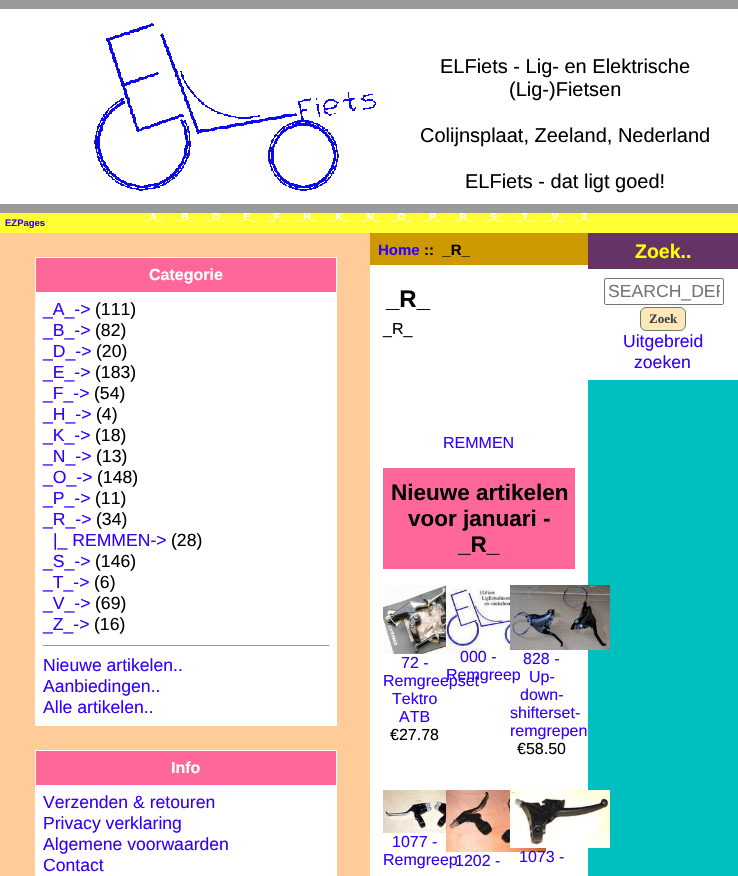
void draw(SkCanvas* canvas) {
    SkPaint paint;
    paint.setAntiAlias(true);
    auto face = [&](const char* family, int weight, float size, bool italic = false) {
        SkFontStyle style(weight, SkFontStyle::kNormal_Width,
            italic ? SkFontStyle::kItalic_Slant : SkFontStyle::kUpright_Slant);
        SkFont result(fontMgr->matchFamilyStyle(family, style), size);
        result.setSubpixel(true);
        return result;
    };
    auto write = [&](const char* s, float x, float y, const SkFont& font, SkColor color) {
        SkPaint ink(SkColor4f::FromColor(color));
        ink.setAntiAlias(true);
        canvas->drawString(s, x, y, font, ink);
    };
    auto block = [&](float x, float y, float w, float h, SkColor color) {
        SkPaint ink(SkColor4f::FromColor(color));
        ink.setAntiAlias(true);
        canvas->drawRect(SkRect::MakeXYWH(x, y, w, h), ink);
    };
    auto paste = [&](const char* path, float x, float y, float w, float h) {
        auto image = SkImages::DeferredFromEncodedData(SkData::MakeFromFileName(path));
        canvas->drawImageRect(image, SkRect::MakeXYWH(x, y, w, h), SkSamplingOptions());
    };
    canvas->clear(SK_ColorWHITE);
    block(0, 0, 738, 9, SkColorSetRGB(154, 154, 154));
    paste("pic1.png", 94, 23, 282, 168);
    auto kFont1 = face("Liberation Sans", 400, 20);
    write("ELFiets - Lig- en Elektrische", 440, 73, kFont1, SK_ColorBLACK);
    write("(Lig-)Fietsen", 509, 96, kFont1, SK_ColorBLACK);
    write("Colijnsplaat, Zeeland, Nederland", 420, 142, kFont1, SK_ColorBLACK);
    write("ELFiets - dat ligt goed!", 465, 188, kFont1, SK_ColorBLACK);
    block(0, 204, 738, 9, SkColorSetRGB(154, 154, 154));
    block(0, 213, 738, 20, SkColorSetRGB(255, 255, 51));
    auto kFont2 = face("Liberation Sans", 700, 10);
    write("_A_", 144, 220, kFont2, SK_ColorWHITE);
    write("_B_", 176, 220, kFont2, SK_ColorWHITE);
    write("_D_", 207, 220, kFont2, SK_ColorWHITE);
    write("_E_", 238, 220, kFont2, SK_ColorWHITE);
    write("_F_", 268, 220, kFont2, SK_ColorWHITE);
    write("_H_", 298, 220, kFont2, SK_ColorWHITE);
    write("_K_", 330, 220, kFont2, SK_ColorWHITE);
    write("_N_", 361, 220, kFont2, SK_ColorWHITE);
    write("_O_", 392, 220, kFont2, SK_ColorWHITE);
    write("_P_", 424, 220, kFont2, SK_ColorWHITE);
    write("_R_", 454, 220, kFont2, SK_ColorWHITE);
    write("_S_", 485, 220, kFont2, SK_ColorWHITE);
    write("_T_", 516, 220, kFont2, SK_ColorWHITE);
    write("_V_", 546, 220, kFont2, SK_ColorWHITE);
    write("_Z_", 576, 220, kFont2, SK_ColorWHITE);
    auto kFont3 = face("Liberation Sans", 700, 9.5f);
    write("EZPages", 5, 226, kFont3, SkColorSetRGB(51, 0, 255));
    block(0, 233, 370, 643, SkColorSetRGB(255, 204, 153));
    paint.setStyle(SkPaint::kStroke_Style);
    paint.setStrokeWidth(1);
    paint.setColor(SK_ColorWHITE);
    canvas->drawRect(SkRect::MakeXYWH(35.5f, 257.5f, 301, 468), paint);
    block(36, 258, 300, 34, SkColorSetRGB(255, 102, 153));
    auto kFont4 = face("Liberation Sans", 700, 16);
    write("Categorie", 149, 280, kFont4, SK_ColorWHITE);
    block(36, 292, 300, 433, SK_ColorWHITE);
    auto kFont5 = face("Liberation Sans", 400, 17.6f);
    write("_A_->", 43, 315, kFont5, SkColorSetRGB(51, 0, 255));
    write("(111)", 95, 315, kFont5, SK_ColorBLACK);
    write("_B_->", 43, 336, kFont5, SkColorSetRGB(51, 0, 255));
    write("(82)", 95, 336, kFont5, SK_ColorBLACK);
    write("_D_->", 43, 357, kFont5, SkColorSetRGB(51, 0, 255));
    write("(20)", 96, 357, kFont5, SK_ColorBLACK);
    write("_E_->", 43, 378, kFont5, SkColorSetRGB(51, 0, 255));
    write("(183)", 95, 378, kFont5, SK_ColorBLACK);
    write("_F_->", 43, 399, kFont5, SkColorSetRGB(51, 0, 255));
    write("(54)", 94, 399, kFont5, SK_ColorBLACK);
    write("_H_->", 43, 420, kFont5, SkColorSetRGB(51, 0, 255));
    write("(4)", 96, 420, kFont5, SK_ColorBLACK);
    write("_K_->", 43, 441, kFont5, SkColorSetRGB(51, 0, 255));
    write("(18)", 95, 441, kFont5, SK_ColorBLACK);
    write("_N_->", 43, 462, kFont5, SkColorSetRGB(51, 0, 255));
    write("(13)", 96, 462, kFont5, SK_ColorBLACK);
    write("_O_->", 43, 483, kFont5, SkColorSetRGB(51, 0, 255));
    write("(148)", 97, 483, kFont5, SK_ColorBLACK);
    write("_P_->", 43, 504, kFont5, SkColorSetRGB(51, 0, 255));
    write("(11)", 95, 504, kFont5, SK_ColorBLACK);
    write("_R_->", 43, 525, kFont5, SkColorSetRGB(51, 0, 255));
    write("(34)", 96, 525, kFont5, SK_ColorBLACK);
    write("|_ REMMEN->", 53, 546, kFont5, SkColorSetRGB(51, 0, 255));
    write("(28)", 171, 546, kFont5, SK_ColorBLACK);
    write("_S_->", 43, 567, kFont5, SkColorSetRGB(51, 0, 255));
    write("(146)", 95, 567, kFont5, SK_ColorBLACK);
    write("_T_->", 43, 588, kFont5, SkColorSetRGB(51, 0, 255));
    write("(6)", 94, 588, kFont5, SK_ColorBLACK);
    write("_V_->", 43, 609, kFont5, SkColorSetRGB(51, 0, 255));
    write("(69)", 95, 609, kFont5, SK_ColorBLACK);
    write("_Z_->", 43, 630, kFont5, SkColorSetRGB(51, 0, 255));
    write("(16)", 94, 630, kFont5, SK_ColorBLACK);
    block(43, 645, 286, 1, SkColorSetRGB(154, 154, 154));
    write("Nieuwe artikelen..", 43, 671, kFont5, SkColorSetRGB(51, 0, 255));
    write("Aanbiedingen..", 43, 692, kFont5, SkColorSetRGB(51, 0, 255));
    write("Alle artikelen..", 43, 713, kFont5, SkColorSetRGB(51, 0, 255));
    canvas->drawRect(SkRect::MakeXYWH(35.5f, 750.5f, 301, 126), paint);
    block(36, 751, 300, 34, SkColorSetRGB(255, 102, 153));
    write("Info", 171, 773, kFont4, SK_ColorWHITE);
    block(36, 785, 300, 91, SK_ColorWHITE);
    write("Verzenden & retouren", 43, 808, kFont5, SkColorSetRGB(51, 0, 255));
    write("Privacy verklaring", 43, 829, kFont5, SkColorSetRGB(51, 0, 255));
    write("Algemene voorwaarden", 43, 850, kFont5, SkColorSetRGB(51, 0, 255));
    write("Contact", 43, 871, kFont5, SkColorSetRGB(51, 0, 255));
    block(370, 233, 218, 32, SkColorSetRGB(204, 153, 0));
    auto kFont6 = face("Liberation Sans", 700, 15);
    write("Home", 378, 255, kFont6, SkColorSetRGB(51, 0, 255));
    write("::  _R_", 424, 255, kFont6, SK_ColorBLACK);
    auto kFont7 = face("Liberation Sans", 700, 24);
    write("_R_", 386, 307, kFont7, SK_ColorBLACK);
    auto kFont8 = face("Liberation Sans", 400, 16);
    write("_R_", 383, 334, kFont8, SK_ColorBLACK);
    write("REMMEN", 443, 448, kFont8, SkColorSetRGB(51, 0, 255));
    block(383, 468, 192, 101, SkColorSetRGB(255, 102, 153));
    auto kFont9 = face("Liberation Sans", 700, 22.5f);
    write("Nieuwe artikelen", 391, 500, kFont9, SK_ColorBLACK);
    write("voor januari -", 408, 526, kFont9, SK_ColorBLACK);
    write("_R_", 458, 552, kFont9, SK_ColorBLACK);
    paste("pic2.png", 383, 585, 100, 69);
    write("72 -", 401, 668, kFont8, SkColorSetRGB(51, 0, 255));
    write("Remgreepset", 383, 686, kFont8, SkColorSetRGB(51, 0, 255));
    write("Tektro", 392, 704, kFont8, SkColorSetRGB(51, 0, 255));
    write("ATB", 399, 722, kFont8, SkColorSetRGB(51, 0, 255));
    write("€27.78", 390, 740, kFont8, SK_ColorBLACK);
    paste("pic3.png", 446, 585, 64, 63);
    write("000 -", 460, 662, kFont8, SkColorSetRGB(51, 0, 255));
    write("Remgreep", 446, 680, kFont8, SkColorSetRGB(51, 0, 255));
    block(588, 380, 150, 496, SkColorSetRGB(0, 191, 191));
    paste("pic4.png", 510, 585, 100, 65);
    write("828 -", 523, 664, kFont8, SkColorSetRGB(51, 0, 255));
    write("Up-", 529, 682, kFont8, SkColorSetRGB(51, 0, 255));
    write("down-", 520, 700, kFont8, SkColorSetRGB(51, 0, 255));
    write("shifterset-", 510, 718, kFont8, SkColorSetRGB(51, 0, 255));
    write("remgrepen", 510, 736, kFont8, SkColorSetRGB(51, 0, 255));
    write("€58.50", 517, 754, kFont8, SK_ColorBLACK);
    paste("pic5.png", 383, 790, 63, 43);
    write("1077 -", 392, 847, kFont8, SkColorSetRGB(51, 0, 255));
    write("Remgreep", 383, 865, kFont8, SkColorSetRGB(51, 0, 255));
    paste("pic6.png", 446, 790, 100, 62);
    write("1202 -", 455, 866, kFont8, SkColorSetRGB(51, 0, 255));
    paste("pic7.png", 510, 790, 100, 58);
    write("1073 -", 519, 862, kFont8, SkColorSetRGB(51, 0, 255));
    block(588, 233, 150, 36, SkColorSetRGB(102, 51, 102));
    auto kFont10 = face("Liberation Sans", 700, 19.5f);
    write("Zoek..", 635, 258, kFont10, SkColorSetRGB(255, 255, 0));
    paint.setColor(SkColorSetRGB(118, 118, 118));
    canvas->drawRoundRect(SkRect::MakeXYWH(604.5f, 278.5f, 119, 26), 1.5f, 1.5f, paint);
    canvas->save();
    canvas->clipRect(SkRect::MakeXYWH(608, 281, 112, 21));
    write("SEARCH_DEF", 608, 297, kFont5, SkColorSetRGB(117, 117, 117));
    canvas->restore();
    paint.setStyle(SkPaint::kFill_Style);
    paint.setColor(SkColorSetRGB(254, 232, 185));
    canvas->drawRoundRect(SkRect::MakeXYWH(640.5f, 307.5f, 45, 23), 5.5f, 5.5f, paint);
    paint.setStyle(SkPaint::kStroke_Style);
    paint.setColor(SkColorSetRGB(99, 130, 99));
    canvas->drawRoundRect(SkRect::MakeXYWH(640.5f, 307.5f, 45, 23), 5.5f, 5.5f, paint);
    auto kFont11 = face("Liberation Serif", 700, 13);
    write("Zoek", 649, 323, kFont11, SkColorSetRGB(64, 64, 64));
    write("Uitgebreid", 623, 347, kFont5, SkColorSetRGB(51, 0, 255));
    write("zoeken", 634, 368, kFont5, SkColorSetRGB(51, 0, 255));
}
